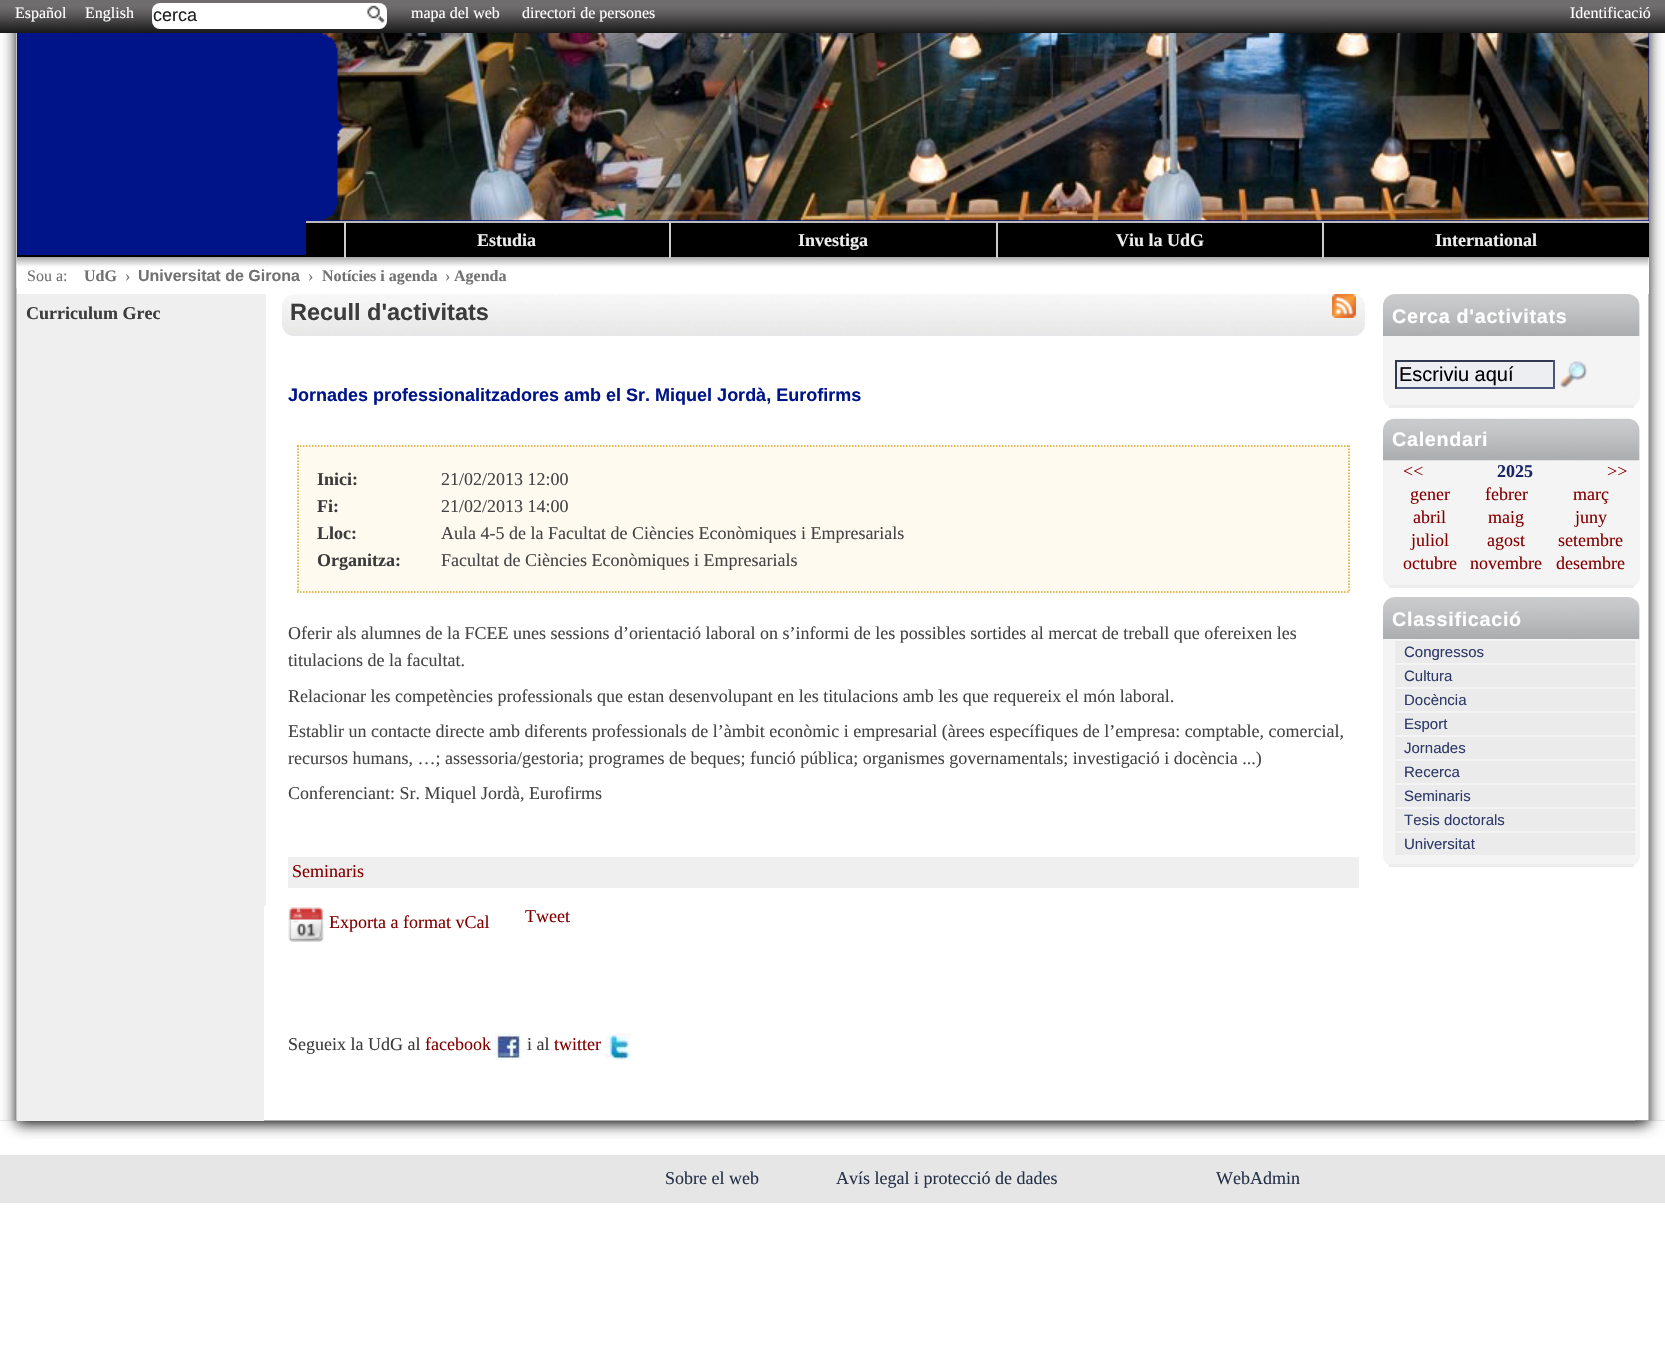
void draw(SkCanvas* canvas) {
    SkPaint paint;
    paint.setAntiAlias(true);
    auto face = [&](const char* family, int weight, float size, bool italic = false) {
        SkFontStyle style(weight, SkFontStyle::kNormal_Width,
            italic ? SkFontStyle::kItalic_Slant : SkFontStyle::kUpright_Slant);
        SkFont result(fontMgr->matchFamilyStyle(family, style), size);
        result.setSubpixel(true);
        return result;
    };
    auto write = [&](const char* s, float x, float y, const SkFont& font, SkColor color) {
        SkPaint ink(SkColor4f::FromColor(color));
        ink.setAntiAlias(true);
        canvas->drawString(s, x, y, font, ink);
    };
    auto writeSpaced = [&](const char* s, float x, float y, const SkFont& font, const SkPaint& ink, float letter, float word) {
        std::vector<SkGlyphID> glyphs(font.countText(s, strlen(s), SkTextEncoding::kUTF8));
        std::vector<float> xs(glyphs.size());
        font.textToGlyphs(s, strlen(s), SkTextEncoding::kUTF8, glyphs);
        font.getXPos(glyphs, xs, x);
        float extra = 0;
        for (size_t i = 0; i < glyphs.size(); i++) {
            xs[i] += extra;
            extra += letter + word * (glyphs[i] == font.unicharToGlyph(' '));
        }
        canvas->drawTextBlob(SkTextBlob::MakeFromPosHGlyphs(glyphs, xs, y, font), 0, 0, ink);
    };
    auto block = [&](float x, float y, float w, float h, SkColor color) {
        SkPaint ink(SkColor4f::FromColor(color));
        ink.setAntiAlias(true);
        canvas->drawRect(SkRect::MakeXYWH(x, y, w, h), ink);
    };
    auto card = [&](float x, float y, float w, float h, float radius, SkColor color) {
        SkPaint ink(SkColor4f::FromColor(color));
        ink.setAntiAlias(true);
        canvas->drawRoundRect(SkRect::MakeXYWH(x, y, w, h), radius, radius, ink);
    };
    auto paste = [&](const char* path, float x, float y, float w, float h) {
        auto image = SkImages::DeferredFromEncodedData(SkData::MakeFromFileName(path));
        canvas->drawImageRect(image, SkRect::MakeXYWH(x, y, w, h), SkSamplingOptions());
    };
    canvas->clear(SK_ColorWHITE);
    paste("pic1.png", 0, 0, 1665, 33);
    auto kFont1 = face("Liberation Serif", 400, 16);
    write("Español", 15, 18, kFont1, SK_ColorWHITE);
    write("English", 85, 18, kFont1, SK_ColorWHITE);
    card(152, 3, 235, 26, 8, SK_ColorWHITE);
    paste("pic2.png", 367, 5, 18, 18);
    auto kFont2 = face("Liberation Sans", 400, 18);
    write("cerca", 153, 21, kFont2, SkColorSetRGB(34, 34, 34));
    write("mapa del web", 411, 18, kFont1, SK_ColorWHITE);
    write("directori de persones", 522, 18, kFont1, SK_ColorWHITE);
    write("Identificació", 1570, 18, kFont1, SK_ColorWHITE);
    paste("pic3.png", 0, 1120, 1665, 19);
    paste("pic4.png", 0, 1120, 30, 19);
    paste("pic5.png", 1635, 1120, 30, 19);
    paste("pic6.png", 0, 33, 17, 1088);
    paste("pic7.png", 1648, 33, 17, 1088);
    block(17, 223, 1632, 34, SK_ColorBLACK);
    block(17, 33, 289, 222, SkColorSetRGB(0, 20, 137));
    block(306, 33, 1343, 188, SkColorSetRGB(0, 20, 137));
    paste("pic8.png", 322, 33, 1327, 188);
    block(306, 221, 1343, 2, SkColorSetRGB(187, 187, 187));
    block(17, 257, 1632, 1, SkColorSetRGB(170, 170, 170));
    block(344, 222, 2, 36, SkColorSetRGB(204, 204, 204));
    auto kFont3 = face("Liberation Serif", 700, 18);
    write("Estudia", 477, 246, kFont3, SkColorSetRGB(238, 238, 238));
    block(669, 222, 2, 36, SkColorSetRGB(204, 204, 204));
    write("Investiga", 798, 246, kFont3, SkColorSetRGB(238, 238, 238));
    block(996, 222, 2, 36, SkColorSetRGB(204, 204, 204));
    write("Viu la UdG", 1116, 246, kFont3, SkColorSetRGB(238, 238, 238));
    block(1322, 222, 2, 36, SkColorSetRGB(204, 204, 204));
    write("International", 1435, 246, kFont3, SkColorSetRGB(238, 238, 238));
    block(1648, 258, 1, 36, SK_ColorWHITE);
    paste("pic9.png", 16, 258, 1633, 30);
    write("Sou a:", 27, 281, kFont1, SkColorSetRGB(113, 113, 113));
    auto kFont4 = face("Liberation Serif", 700, 16);
    write("UdG", 84, 281, kFont4, SkColorSetRGB(113, 113, 113));
    write("›", 125, 281, kFont1, SkColorSetRGB(113, 113, 113));
    auto kFont5 = face("Liberation Sans", 700, 16);
    write("Universitat de Girona", 138, 281, kFont5, SkColorSetRGB(113, 113, 113));
    write("›", 308, 281, kFont1, SkColorSetRGB(113, 113, 113));
    write("Notícies i agenda", 322, 281, kFont4, SkColorSetRGB(113, 113, 113));
    write("›", 445, 281, kFont1, SkColorSetRGB(113, 113, 113));
    write("Agenda", 454, 281, kFont4, SkColorSetRGB(113, 113, 113));
    block(17, 294, 247, 827, SkColorSetRGB(239, 239, 239));
    block(264, 294, 2, 612, SkColorSetRGB(239, 239, 239));
    write("Curriculum Grec", 26, 319, kFont3, SkColorSetRGB(60, 60, 60));
    paste("pic10.png", 282, 294, 1083, 42);
    auto kFont6 = face("Liberation Sans", 700, 23.5f);
    write("Recull d'activitats", 290, 320, kFont6, SkColorSetRGB(60, 60, 60));
    paste("pic11.png", 1332, 294, 24, 24);
    auto kFont7 = face("Liberation Sans", 700, 18);
    write("Jornades professionalitzadores amb el Sr. Miquel Jordà, Eurofirms", 288, 401, kFont7, SkColorSetRGB(0, 20, 137));
    block(297, 446, 1053, 147, SkColorSetRGB(255, 250, 240));
    paint.setStyle(SkPaint::kStroke_Style);
    paint.setStrokeWidth(1.5f);
    paint.setColor(SkColorSetRGB(218, 165, 32));
    paint.setPathEffect(SkDashPathEffect::Make({{1.5f, 1.5f}}, 0));
    canvas->drawPath(SkPathBuilder().moveTo(297, 446).lineTo(1350, 446).detach(), paint);
    paint.setPathEffect(nullptr);
    paint.setPathEffect(SkDashPathEffect::Make({{1.5f, 1.5f}}, 0));
    canvas->drawPath(SkPathBuilder().moveTo(1349, 445.5f).lineTo(1349, 592.5f).detach(), paint);
    paint.setPathEffect(nullptr);
    paint.setPathEffect(SkDashPathEffect::Make({{1.5f, 1.5f}}, 0));
    canvas->drawPath(SkPathBuilder().moveTo(297, 592).lineTo(1350, 592).detach(), paint);
    paint.setPathEffect(nullptr);
    paint.setPathEffect(SkDashPathEffect::Make({{1.5f, 1.5f}}, 0));
    canvas->drawPath(SkPathBuilder().moveTo(298, 445.5f).lineTo(298, 592.5f).detach(), paint);
    paint.setPathEffect(nullptr);
    write("Inici:", 317, 485, kFont3, SkColorSetRGB(60, 60, 60));
    auto kFont8 = face("Liberation Serif", 400, 18);
    write("21/02/2013 12:00", 441, 485, kFont8, SkColorSetRGB(68, 68, 68));
    write("Fi:", 317, 512, kFont3, SkColorSetRGB(60, 60, 60));
    write("21/02/2013 14:00", 441, 512, kFont8, SkColorSetRGB(68, 68, 68));
    write("Lloc:", 317, 539, kFont3, SkColorSetRGB(60, 60, 60));
    write("Aula 4-5 de la Facultat de Ciències Econòmiques i Empresarials", 441, 539, kFont8, SkColorSetRGB(68, 68, 68));
    write("Organitza:", 317, 566, kFont3, SkColorSetRGB(60, 60, 60));
    write("Facultat de Ciències Econòmiques i Empresarials", 441, 566, kFont8, SkColorSetRGB(68, 68, 68));
    write("Oferir als alumnes de la FCEE unes sessions d’orientació laboral on s’informi de les possibles sortides al mercat de treball que ofereixen les", 288, 639, kFont8, SkColorSetRGB(68, 68, 68));
    write("titulacions de la facultat.", 288, 666, kFont8, SkColorSetRGB(68, 68, 68));
    write("Relacionar les competències professionals que estan desenvolupant en les titulacions amb les que requereix el món laboral.", 288, 702, kFont8, SkColorSetRGB(68, 68, 68));
    write("Establir un contacte directe amb diferents professionals de l’àmbit econòmic i empresarial (àrees específiques de l’empresa: comptable, comercial,", 288, 737, kFont8, SkColorSetRGB(68, 68, 68));
    write("recursos humans, …; assessoria/gestoria; programes de beques; funció pública; organismes governamentals; investigació i docència ...)", 288, 764, kFont8, SkColorSetRGB(68, 68, 68));
    write("Conferenciant: Sr. Miquel Jordà, Eurofirms", 288, 799, kFont8, SkColorSetRGB(68, 68, 68));
    block(288, 857, 1071, 31, SkColorSetRGB(239, 239, 239));
    write("Seminaris", 292, 877, kFont8, SkColorSetRGB(132, 0, 0));
    paste("pic12.png", 288, 907, 36, 35);
    write("Exporta a format vCal", 329, 928, kFont8, SkColorSetRGB(132, 0, 0));
    write("Tweet", 525, 922, kFont8, SkColorSetRGB(132, 0, 0));
    write("Segueix la UdG al", 288, 1050, kFont8, SkColorSetRGB(60, 60, 60));
    write("facebook", 425, 1050, kFont8, SkColorSetRGB(132, 0, 0));
    paste("pic13.png", 495, 1033, 26, 27);
    write("i al", 527, 1050, kFont8, SkColorSetRGB(60, 60, 60));
    write("twitter", 554, 1050, kFont8, SkColorSetRGB(132, 0, 0));
    paste("pic14.png", 606, 1033, 25, 27);
    card(1383, 294, 257, 114, 12, SkColorSetRGB(245, 244, 244));
    block(1389, 405, 245, 3, SkColorSetRGB(237, 237, 237));
    paste("pic15.png", 1383, 294, 257, 42);
    auto kFont9 = face("Liberation Sans", 700, 19.75f);
    paint.setStyle(SkPaint::kFill_Style);
    paint.setColor(SK_ColorWHITE);
    writeSpaced("Cerca d'activitats", 1392, 323, kFont9, paint, 0.7f, 0);
    block(1397, 362, 156, 25, SkColorSetRGB(237, 238, 242));
    block(1395, 360, 159, 2, SkColorSetRGB(49, 57, 82));
    block(1553, 360, 2, 29, SkColorSetRGB(74, 85, 123));
    block(1395, 387, 159, 2, SkColorSetRGB(74, 85, 123));
    block(1395, 360, 2, 29, SkColorSetRGB(49, 57, 82));
    auto kFont10 = face("Liberation Sans", 400, 20);
    write("Escriviu aquí", 1399, 381, kFont10, SK_ColorBLACK);
    paste("pic16.png", 1559, 361, 29, 28);
    card(1383, 419, 257, 169, 12, SkColorSetRGB(245, 244, 244));
    block(1389, 585, 245, 3, SkColorSetRGB(237, 237, 237));
    paste("pic17.png", 1383, 418, 257, 43);
    writeSpaced("Calendari", 1392, 446, kFont9, paint, 0.7f, 0);
    write("<<", 1403, 477, kFont8, SkColorSetRGB(132, 0, 0));
    write("2025", 1497, 477, kFont3, SkColorSetRGB(24, 38, 101));
    write(">>", 1607, 477, kFont8, SkColorSetRGB(132, 0, 0));
    write("gener", 1410, 500, kFont8, SkColorSetRGB(132, 0, 0));
    write("febrer", 1485, 500, kFont8, SkColorSetRGB(132, 0, 0));
    write("març", 1573, 500, kFont8, SkColorSetRGB(132, 0, 0));
    write("abril", 1413, 523, kFont8, SkColorSetRGB(132, 0, 0));
    write("maig", 1488, 523, kFont8, SkColorSetRGB(132, 0, 0));
    write("juny", 1575, 523, kFont8, SkColorSetRGB(132, 0, 0));
    write("juliol", 1411, 546, kFont8, SkColorSetRGB(132, 0, 0));
    write("agost", 1487, 546, kFont8, SkColorSetRGB(132, 0, 0));
    write("setembre", 1558, 546, kFont8, SkColorSetRGB(132, 0, 0));
    write("octubre", 1403, 569, kFont8, SkColorSetRGB(132, 0, 0));
    write("novembre", 1470, 569, kFont8, SkColorSetRGB(132, 0, 0));
    write("desembre", 1556, 569, kFont8, SkColorSetRGB(132, 0, 0));
    card(1383, 597, 257, 270, 12, SkColorSetRGB(245, 244, 244));
    block(1389, 864, 245, 3, SkColorSetRGB(237, 237, 237));
    paste("pic18.png", 1383, 597, 257, 42);
    writeSpaced("Classificació", 1392, 626, kFont9, paint, 0.7f, 0);
    block(1395, 641, 240, 22, SkColorSetRGB(235, 235, 235));
    auto kFont11 = face("Liberation Sans", 400, 15);
    write("Congressos", 1404, 657, kFont11, SkColorSetRGB(46, 58, 105));
    block(1395, 665, 240, 22, SkColorSetRGB(235, 235, 235));
    write("Cultura", 1404, 681, kFont11, SkColorSetRGB(46, 58, 105));
    block(1395, 689, 240, 22, SkColorSetRGB(235, 235, 235));
    write("Docència", 1404, 705, kFont11, SkColorSetRGB(46, 58, 105));
    block(1395, 713, 240, 22, SkColorSetRGB(235, 235, 235));
    write("Esport", 1404, 729, kFont11, SkColorSetRGB(46, 58, 105));
    block(1395, 737, 240, 22, SkColorSetRGB(235, 235, 235));
    write("Jornades", 1404, 753, kFont11, SkColorSetRGB(46, 58, 105));
    block(1395, 761, 240, 22, SkColorSetRGB(235, 235, 235));
    write("Recerca", 1404, 777, kFont11, SkColorSetRGB(46, 58, 105));
    block(1395, 785, 240, 22, SkColorSetRGB(235, 235, 235));
    write("Seminaris", 1404, 801, kFont11, SkColorSetRGB(46, 58, 105));
    block(1395, 809, 240, 22, SkColorSetRGB(235, 235, 235));
    write("Tesis doctorals", 1404, 825, kFont11, SkColorSetRGB(46, 58, 105));
    block(1395, 833, 240, 22, SkColorSetRGB(235, 235, 235));
    write("Universitat", 1404, 849, kFont11, SkColorSetRGB(46, 58, 105));
    block(0, 1155, 1665, 48, SkColorSetRGB(230, 230, 230));
    write("Sobre el web", 665, 1184, kFont8, SkColorSetRGB(38, 50, 72));
    write("Avís legal i protecció de dades", 836, 1184, kFont8, SkColorSetRGB(38, 50, 72));
    write("WebAdmin", 1216, 1184, kFont8, SkColorSetRGB(38, 50, 72));
}
